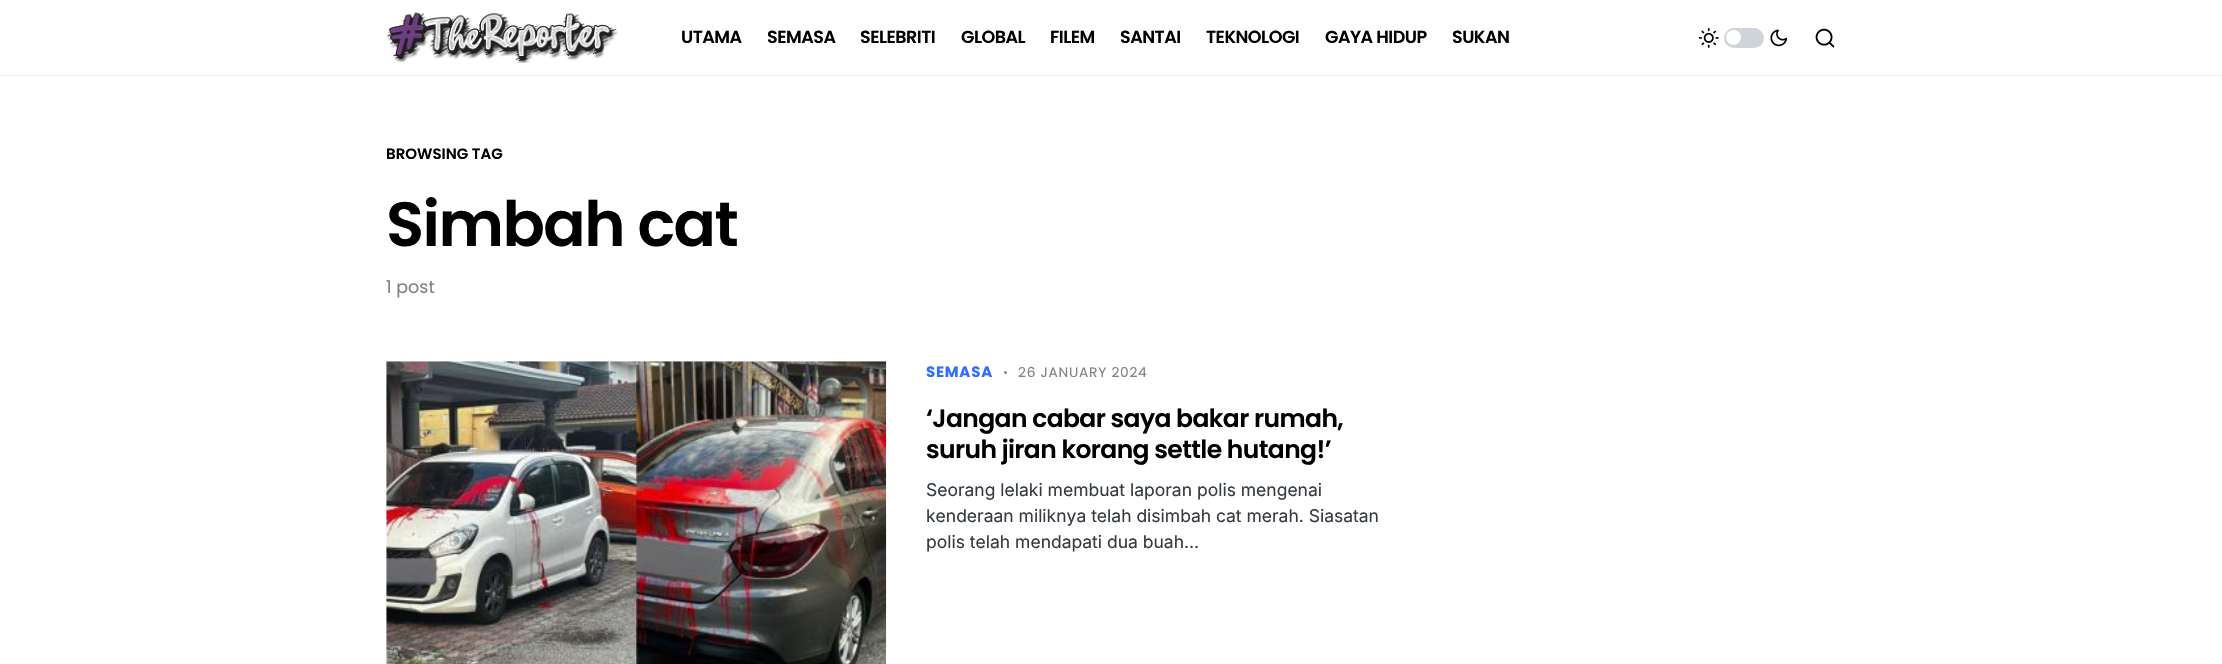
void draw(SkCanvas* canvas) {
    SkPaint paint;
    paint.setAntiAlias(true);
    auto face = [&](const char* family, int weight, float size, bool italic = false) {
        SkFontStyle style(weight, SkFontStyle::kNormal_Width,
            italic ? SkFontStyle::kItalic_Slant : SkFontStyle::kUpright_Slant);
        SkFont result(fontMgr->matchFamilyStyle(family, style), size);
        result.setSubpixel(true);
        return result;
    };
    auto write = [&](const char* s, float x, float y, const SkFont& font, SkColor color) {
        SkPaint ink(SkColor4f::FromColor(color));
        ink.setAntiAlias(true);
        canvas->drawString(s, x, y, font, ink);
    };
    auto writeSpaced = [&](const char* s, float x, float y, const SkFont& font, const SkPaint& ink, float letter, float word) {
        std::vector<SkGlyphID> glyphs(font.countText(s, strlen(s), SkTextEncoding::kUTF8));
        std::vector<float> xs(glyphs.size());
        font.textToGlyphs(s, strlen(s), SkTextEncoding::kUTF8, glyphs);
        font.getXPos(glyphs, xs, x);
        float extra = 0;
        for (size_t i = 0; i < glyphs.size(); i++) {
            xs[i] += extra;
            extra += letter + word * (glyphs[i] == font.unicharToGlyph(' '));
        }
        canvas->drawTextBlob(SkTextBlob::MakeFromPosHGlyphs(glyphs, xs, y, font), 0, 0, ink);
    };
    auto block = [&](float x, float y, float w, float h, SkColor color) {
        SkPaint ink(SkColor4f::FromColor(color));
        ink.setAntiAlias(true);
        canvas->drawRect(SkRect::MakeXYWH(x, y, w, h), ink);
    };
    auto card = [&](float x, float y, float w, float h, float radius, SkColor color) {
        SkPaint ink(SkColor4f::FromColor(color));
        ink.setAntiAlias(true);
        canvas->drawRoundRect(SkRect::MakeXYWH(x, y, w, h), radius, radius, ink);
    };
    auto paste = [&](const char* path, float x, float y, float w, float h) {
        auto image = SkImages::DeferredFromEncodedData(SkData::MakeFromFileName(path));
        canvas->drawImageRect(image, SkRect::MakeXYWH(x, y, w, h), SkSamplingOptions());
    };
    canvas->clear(SK_ColorWHITE);
    block(0, 75, 2222, 1, SkColorSetRGB(233, 236, 239));
    paste("pic1.png", 387, 12, 231, 51);
    auto kFont1 = face("Poppins", 600, 17.5f);
    paint.setColor(SK_ColorBLACK);
    writeSpaced("UTAMA", 681, 43, kFont1, paint, -0.5f, 0);
    writeSpaced("SEMASA", 767, 43, kFont1, paint, -0.5f, 0);
    writeSpaced("SELEBRITI", 860, 43, kFont1, paint, -0.5f, 0);
    writeSpaced("GLOBAL", 961, 43, kFont1, paint, -0.5f, 0);
    writeSpaced("FILEM", 1050, 43, kFont1, paint, -0.5f, 0);
    writeSpaced("SANTAI", 1120, 43, kFont1, paint, -0.5f, 0);
    writeSpaced("TEKNOLOGI", 1206, 43, kFont1, paint, -0.5f, 0);
    writeSpaced("GAYA HIDUP", 1325, 43, kFont1, paint, -0.5f, 0);
    writeSpaced("SUKAN", 1452, 43, kFont1, paint, -0.5f, 0);
    paste("pic2.png", 1698, 28, 21, 20);
    card(1724, 28, 40, 20, 10, SkColorSetRGB(206, 212, 218));
    paint.setColor(SK_ColorWHITE);
    canvas->drawCircle(1733.5f, 37.5f, 7.5f, paint);
    paste("pic3.png", 1770, 29, 18, 18);
    paste("pic4.png", 1815, 28, 20, 20);
    auto kFont2 = face("Poppins", 600, 15);
    write("BROWSING TAG", 386, 159, kFont2, SK_ColorBLACK);
    auto kFont3 = face("Poppins", 600, 62.5f);
    paint.setColor(SK_ColorBLACK);
    writeSpaced("Simbah cat", 386, 246, kFont3, paint, -1.5f, 0);
    auto kFont4 = face("Poppins", 400, 17.5f);
    write("1 post", 386, 293, kFont4, SkColorSetRGB(129, 129, 129));
    paste("pic5.png", 386, 361, 501, 303);
    auto kFont5 = face("Poppins", 700, 15);
    paint.setColor(SkColorSetRGB(50, 109, 255));
    writeSpaced("SEMASA", 926, 377, kFont5, paint, 0.75f, 0);
    paint.setColor(SkColorSetRGB(129, 129, 129));
    canvas->drawCircle(1005.5f, 372.5f, 1.5f, paint);
    auto kFont6 = face("Poppins", 400, 13.75f);
    writeSpaced("26 JANUARY 2024", 1018, 377, kFont6, paint, 0.75f, 0);
    auto kFont7 = face("Poppins", 600, 25);
    paint.setColor(SK_ColorBLACK);
    writeSpaced("‘Jangan cabar saya bakar rumah,", 926, 427, kFont7, paint, -0.6f, 0);
    writeSpaced("suruh jiran korang settle hutang!’", 926, 458, kFont7, paint, -0.6f, 0);
    auto kFont8 = face("Inter", 400, 17.5f);
    write("Seorang lelaki membuat laporan polis mengenai", 926, 496, kFont8, SkColorSetRGB(52, 58, 64));
    write("kenderaan miliknya telah disimbah cat merah. Siasatan", 926, 522, kFont8, SkColorSetRGB(52, 58, 64));
    write("polis telah mendapati dua buah…", 926, 548, kFont8, SkColorSetRGB(52, 58, 64));
}
